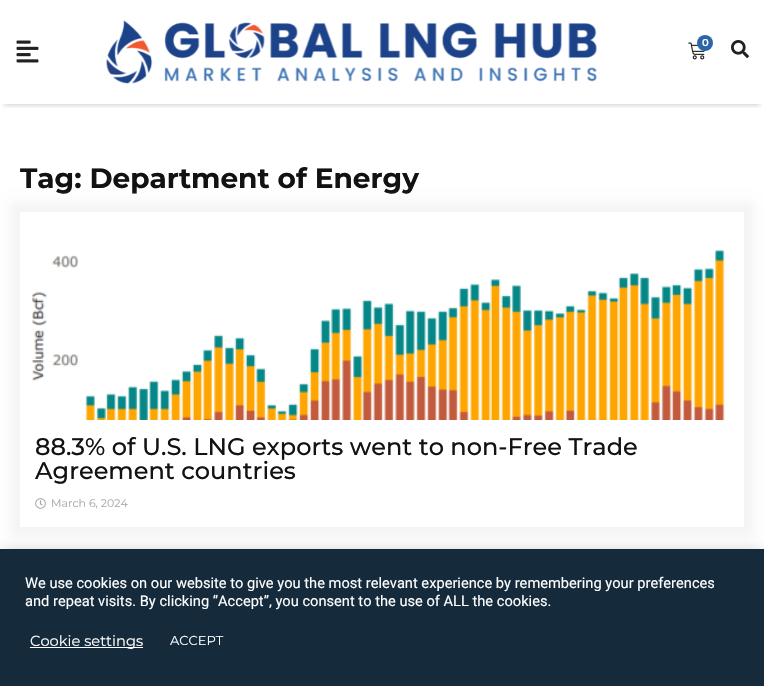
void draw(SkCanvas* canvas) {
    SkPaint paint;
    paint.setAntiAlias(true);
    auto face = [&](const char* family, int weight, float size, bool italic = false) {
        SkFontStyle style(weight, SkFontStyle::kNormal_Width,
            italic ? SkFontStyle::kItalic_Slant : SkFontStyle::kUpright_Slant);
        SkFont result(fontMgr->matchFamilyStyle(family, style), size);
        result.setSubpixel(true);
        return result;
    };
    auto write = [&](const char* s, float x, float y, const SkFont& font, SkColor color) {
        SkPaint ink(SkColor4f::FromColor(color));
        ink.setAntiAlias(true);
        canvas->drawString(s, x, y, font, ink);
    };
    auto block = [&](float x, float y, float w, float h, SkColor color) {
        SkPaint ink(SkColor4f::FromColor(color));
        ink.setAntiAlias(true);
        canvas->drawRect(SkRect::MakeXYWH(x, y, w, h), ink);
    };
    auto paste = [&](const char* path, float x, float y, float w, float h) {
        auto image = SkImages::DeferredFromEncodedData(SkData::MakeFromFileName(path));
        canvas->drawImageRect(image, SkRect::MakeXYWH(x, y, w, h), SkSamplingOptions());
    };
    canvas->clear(SK_ColorWHITE);
    canvas->save();
    canvas->clipRect(SkRect::MakeXYWH(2, 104, 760, 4));
    paint.setColor(SkColorSetARGB(51, 0, 0, 0));
    paint.setMaskFilter(SkMaskFilter::MakeBlur(kNormal_SkBlurStyle, 2.5f));
    canvas->drawRect(SkRect::MakeXYWH(4, 9, 756, 96), paint);
    paint.setMaskFilter(nullptr);
    canvas->restore();
    paste("pic1.png", 16, 40, 23, 23);
    paste("pic2.png", 106, 20, 491, 64);
    paste("pic3.png", 688, 42, 18, 18);
    paint.setColor(SkColorSetRGB(45, 101, 169));
    canvas->drawCircle(705, 43, 8, paint);
    auto kFont1 = face("Montserrat", 600, 10);
    write("0", 702, 46, kFont1, SK_ColorWHITE);
    paste("pic4.png", 731, 40, 18, 18);
    auto kFont2 = face("Montserrat", 700, 28);
    write("Tag: Department of Energy", 20, 188, kFont2, SkColorSetRGB(18, 18, 18));
    canvas->save();
    canvas->clipPath(SkPathBuilder(SkPathFillType::kEvenOdd).moveTo(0, 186).lineTo(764, 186).lineTo(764, 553).lineTo(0, 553).close().moveTo(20, 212).lineTo(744, 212).lineTo(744, 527).lineTo(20, 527).close().detach(), true);
    paint.setColor(SkColorSetRGB(244, 244, 244));
    paint.setMaskFilter(SkMaskFilter::MakeBlur(kNormal_SkBlurStyle, 5));
    canvas->drawRect(SkRect::MakeXYWH(10, 202, 744, 335), paint);
    paint.setMaskFilter(nullptr);
    canvas->restore();
    paste("pic5.png", 31, 250, 694, 170);
    auto kFont3 = face("Montserrat", 500, 24);
    write("88.3% of U.S. LNG exports went to non-Free Trade", 35, 455, kFont3, SkColorSetRGB(18, 18, 18));
    write("Agreement countries", 35, 479, kFont3, SkColorSetRGB(18, 18, 18));
    paste("pic6.png", 35, 498, 11, 11);
    auto kFont4 = face("Montserrat", 400, 11);
    write("March 6, 2024", 51, 507, kFont4, SkColorSetRGB(168, 168, 170));
    paint.setMaskFilter(SkMaskFilter::MakeBlur(kNormal_SkBlurStyle, 5));
    canvas->drawRect(SkRect::MakeXYWH(10, 547, 744, 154), paint);
    paint.setMaskFilter(nullptr);
    paint.setColor(SkColorSetARGB(77, 172, 171, 171));
    paint.setMaskFilter(SkMaskFilter::MakeBlur(kNormal_SkBlurStyle, 5));
    canvas->drawRect(SkRect::MakeXYWH(0, 548, 764, 137), paint);
    paint.setMaskFilter(nullptr);
    block(0, 549, 764, 137, SkColorSetRGB(21, 43, 60));
    auto kFont5 = face("Roboto", 400, 14.65f);
    write("We use cookies on our website to give you the most relevant experience by remembering your preferences", 25, 588, kFont5, SK_ColorWHITE);
    write("and repeat visits. By clicking “Accept”, you consent to the use of ALL the cookies.", 25, 606, kFont5, SK_ColorWHITE);
    block(30, 647, 113, 1, SK_ColorWHITE);
    auto kFont6 = face("Montserrat", 400, 14.65f);
    write("Cookie settings", 30, 646, kFont6, SK_ColorWHITE);
    auto kFont7 = face("Montserrat", 400, 13);
    write("ACCEPT", 170, 645, kFont7, SK_ColorWHITE);
}
